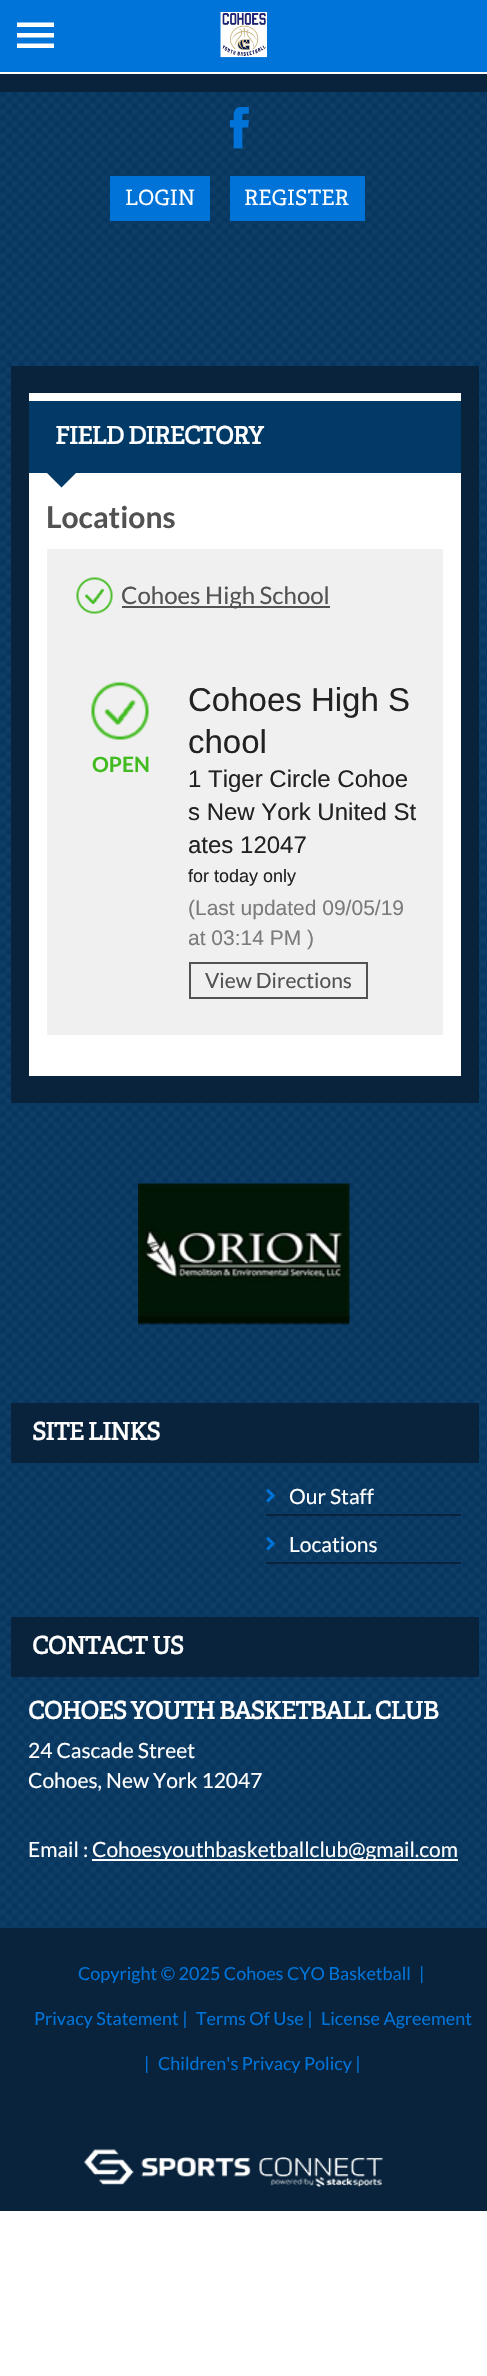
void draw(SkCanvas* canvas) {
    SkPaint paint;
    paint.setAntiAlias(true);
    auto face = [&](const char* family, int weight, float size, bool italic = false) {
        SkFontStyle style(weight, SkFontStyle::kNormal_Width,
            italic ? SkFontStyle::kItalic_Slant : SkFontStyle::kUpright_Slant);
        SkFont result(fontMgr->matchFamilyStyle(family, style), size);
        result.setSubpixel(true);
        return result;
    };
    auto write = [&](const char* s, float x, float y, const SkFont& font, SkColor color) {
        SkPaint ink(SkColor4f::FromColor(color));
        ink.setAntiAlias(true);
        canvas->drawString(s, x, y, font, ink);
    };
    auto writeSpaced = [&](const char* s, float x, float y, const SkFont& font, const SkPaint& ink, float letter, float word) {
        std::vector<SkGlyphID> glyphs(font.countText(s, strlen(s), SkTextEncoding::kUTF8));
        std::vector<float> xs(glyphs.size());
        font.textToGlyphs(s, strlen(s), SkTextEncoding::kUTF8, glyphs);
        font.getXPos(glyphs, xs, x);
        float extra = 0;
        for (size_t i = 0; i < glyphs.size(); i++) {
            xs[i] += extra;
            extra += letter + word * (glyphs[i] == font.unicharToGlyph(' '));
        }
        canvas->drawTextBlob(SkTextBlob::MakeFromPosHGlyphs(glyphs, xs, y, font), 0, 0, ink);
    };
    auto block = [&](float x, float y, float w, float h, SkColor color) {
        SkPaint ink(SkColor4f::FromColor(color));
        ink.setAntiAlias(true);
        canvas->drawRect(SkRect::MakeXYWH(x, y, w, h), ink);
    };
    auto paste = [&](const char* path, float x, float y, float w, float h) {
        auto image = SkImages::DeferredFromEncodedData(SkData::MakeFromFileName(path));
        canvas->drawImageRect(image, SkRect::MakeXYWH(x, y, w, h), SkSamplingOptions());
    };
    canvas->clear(SK_ColorWHITE);
    block(0, 0, 487, 72, SkColorSetRGB(0, 116, 217));
    canvas->save();
    canvas->clipRect(SkRect::MakeXYWH(17, 17, 37, 37));
    paint.setColor(SK_ColorWHITE);
    canvas->drawPath(SkPathBuilder().moveTo(16.5f, 22.5f).lineTo(54, 22.5f).lineTo(54, 27).lineTo(16.5f, 27).close().moveTo(16.5f, 33).lineTo(54, 33).lineTo(54, 37.5f).lineTo(16.5f, 37.5f).close().moveTo(16.5f, 43.5f).lineTo(54, 43.5f).lineTo(54, 48).lineTo(16.5f, 48).close().detach(), paint);
    canvas->restore();
    paste("pic1.png", 220, 12, 47, 46);
    paste("pic2.png", 0, 92, 487, 1836);
    block(0, 74, 487, 18, SkColorSetRGB(8, 35, 59));
    paste("pic3.png", 230, 107, 19, 42);
    block(110, 176, 100, 45, SkColorSetRGB(0, 115, 216));
    auto kFont1 = face("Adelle", 400, 21);
    write("LOGIN", 125, 205, kFont1, SK_ColorWHITE);
    block(230, 176, 135, 45, SkColorSetRGB(0, 115, 216));
    write("REGISTER", 244, 205, kFont1, SK_ColorWHITE);
    block(11, 366, 468, 737, SkColorSetRGB(8, 35, 59));
    block(29, 401, 432, 72, SkColorSetRGB(1, 57, 103));
    block(29, 393, 432, 8, SK_ColorWHITE);
    auto kFont2 = face("Adelle", 700, 24);
    writeSpaced("FIELD DIRECTORY", 55, 444, kFont2, paint, -0.75f, 0);
    block(29, 473, 432, 603, SK_ColorWHITE);
    paint.setColor(SkColorSetRGB(1, 57, 103));
    canvas->drawPath(SkPathBuilder().moveTo(46.5f, 472.5f).lineTo(76.5f, 472.5f).lineTo(61.5f, 487.5f).close().detach(), paint);
    auto kFont3 = face("Lato", 700, 30);
    write("Locations", 46, 528, kFont3, SkColorSetRGB(82, 82, 82));
    block(47, 549, 396, 108, SkColorSetRGB(240, 240, 240));
    paste("pic4.png", 76, 577, 37, 37);
    block(122, 606, 208, 2, SkColorSetRGB(82, 82, 82));
    auto kFont4 = face("Lato", 400, 24);
    write("Cohoes High School", 121, 604, kFont4, SkColorSetRGB(82, 82, 82));
    paint.setStyle(SkPaint::kStroke_Style);
    paint.setStrokeWidth(23);
    paint.setColor(SkColorSetRGB(240, 240, 240));
    canvas->drawRect(SkRect::MakeXYWH(58.5f, 668.5f, 373, 355), paint);
    block(70, 680, 350, 332, SkColorSetRGB(240, 240, 240));
    auto kFont5 = face("Lato", 700, 21);
    write("OPEN", 92, 772, kFont5, SkColorSetRGB(66, 187, 32));
    paste("pic5.png", 91, 682, 58, 58);
    auto kFont6 = face("Liberation Sans", 400, 33);
    write("Cohoes High S", 188, 711, kFont6, SkColorSetRGB(34, 34, 34));
    write("chool", 188, 753, kFont6, SkColorSetRGB(34, 34, 34));
    auto kFont7 = face("Liberation Sans", 400, 24);
    write("1 Tiger Circle Cohoe", 188, 787, kFont7, SkColorSetRGB(34, 34, 34));
    write("s New York United St", 188, 820, kFont7, SkColorSetRGB(34, 34, 34));
    write("ates 12047", 188, 853, kFont7, SkColorSetRGB(34, 34, 34));
    auto kFont8 = face("Liberation Sans", 400, 18);
    write("for today only", 188, 882, kFont8, SkColorSetRGB(34, 34, 34));
    auto kFont9 = face("Liberation Sans", 400, 21);
    write("(Last updated 09/05/19", 188, 915, kFont9, SkColorSetRGB(123, 123, 123));
    write("at 03:14 PM )", 188, 945, kFont9, SkColorSetRGB(123, 123, 123));
    paint.setStrokeWidth(2);
    paint.setColor(SkColorSetRGB(82, 82, 82));
    canvas->drawRect(SkRect::MakeXYWH(190, 963, 177, 35), paint);
    auto kFont10 = face("Lato", 400, 21);
    write("View Directions", 205, 988, kFont10, SkColorSetRGB(82, 82, 82));
    paste("pic6.png", 138, 1183, 212, 142);
    block(11, 1403, 468, 60, SkColorSetRGB(8, 35, 59));
    paint.setStyle(SkPaint::kFill_Style);
    paint.setColor(SK_ColorWHITE);
    writeSpaced("SITE LINKS", 32, 1440, kFont2, paint, -0.75f, 0);
    block(266, 1514, 195, 2, SkColorSetRGB(8, 35, 59));
    paste("pic7.png", 266, 1488, 9, 15);
    write("Our Staff", 289, 1504, kFont10, SK_ColorWHITE);
    block(266, 1562, 195, 2, SkColorSetRGB(8, 35, 59));
    paste("pic7.png", 266, 1536, 9, 15);
    write("Locations", 289, 1552, kFont10, SK_ColorWHITE);
    block(11, 1617, 468, 60, SkColorSetRGB(8, 35, 59));
    writeSpaced("CONTACT US", 32, 1654, kFont2, paint, -0.75f, 0);
    writeSpaced("COHOES YOUTH BASKETBALL CLUB", 28, 1719, kFont2, paint, -0.75f, 0);
    write("24 Cascade Street", 28, 1758, kFont10, SK_ColorWHITE);
    write("Cohoes, New York 12047", 28, 1788, kFont10, SK_ColorWHITE);
    write("Email :", 28, 1857, kFont10, SK_ColorWHITE);
    block(92, 1859, 366, 2, SK_ColorWHITE);
    write("Cohoesyouthbasketballclub@gmail.com", 92, 1857, kFont10, SK_ColorWHITE);
    block(0, 1928, 487, 283, SkColorSetRGB(8, 35, 59));
    auto kFont11 = face("Lato", 400, 18);
    write("Copyright © 2025 Cohoes CYO Basketball", 78, 1980, kFont11, SkColorSetRGB(0, 115, 216));
    write("|", 419, 1980, kFont11, SkColorSetRGB(0, 115, 216));
    write("Privacy Statement |", 34, 2025, kFont11, SkColorSetRGB(0, 115, 216));
    write("Terms Of Use |", 196, 2025, kFont11, SkColorSetRGB(0, 115, 216));
    write("License Agreement", 321, 2025, kFont11, SkColorSetRGB(0, 115, 216));
    write("|", 144, 2070, kFont11, SkColorSetRGB(0, 115, 216));
    write("Children's Privacy Policy |", 158, 2070, kFont11, SkColorSetRGB(0, 115, 216));
    paste("pic8.png", 84, 2149, 299, 38);
}
